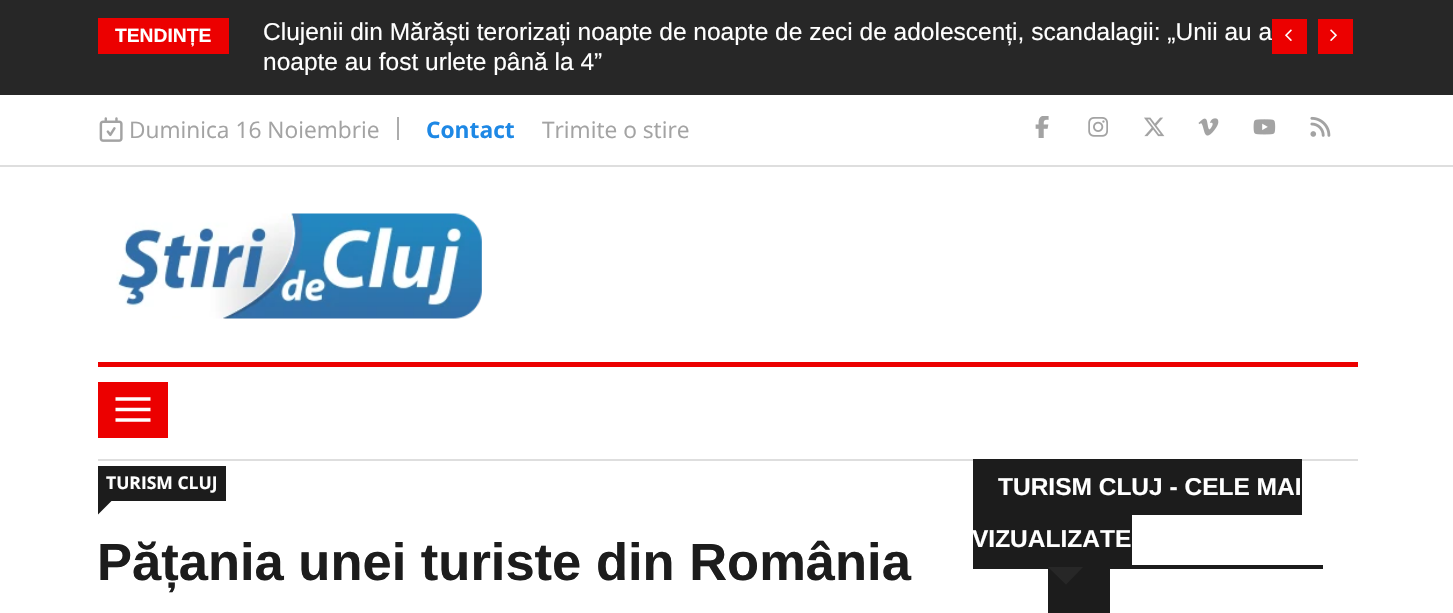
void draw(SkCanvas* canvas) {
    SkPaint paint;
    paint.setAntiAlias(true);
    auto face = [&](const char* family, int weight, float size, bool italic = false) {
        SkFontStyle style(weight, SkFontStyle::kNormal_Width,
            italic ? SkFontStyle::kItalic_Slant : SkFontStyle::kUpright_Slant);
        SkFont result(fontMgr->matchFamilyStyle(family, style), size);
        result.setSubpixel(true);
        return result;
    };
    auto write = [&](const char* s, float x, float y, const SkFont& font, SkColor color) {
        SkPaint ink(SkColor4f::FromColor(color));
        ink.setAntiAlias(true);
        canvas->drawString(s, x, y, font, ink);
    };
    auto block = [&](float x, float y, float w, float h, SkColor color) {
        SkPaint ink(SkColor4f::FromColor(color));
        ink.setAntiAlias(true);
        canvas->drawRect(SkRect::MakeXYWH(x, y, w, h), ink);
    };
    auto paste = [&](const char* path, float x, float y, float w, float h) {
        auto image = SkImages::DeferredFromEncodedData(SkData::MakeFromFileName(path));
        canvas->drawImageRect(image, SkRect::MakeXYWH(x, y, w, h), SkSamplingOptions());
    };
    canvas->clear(SK_ColorWHITE);
    block(0, 0, 1453, 95, SkColorSetRGB(39, 39, 39));
    block(98, 18, 131, 36, SkColorSetRGB(236, 0, 0));
    auto kFont1 = face("Arimo", 700, 19.25f);
    write("TENDINȚE", 115, 42, kFont1, SK_ColorWHITE);
    auto kFont2 = face("Arimo", 400, 24.5f);
    write("Clujenii din Mărăști terorizați noapte de noapte de zeci de adolescenți, scandalagii: „Unii au a", 263, 40, kFont2, SK_ColorWHITE);
    write("noapte au fost urlete până la 4”", 263, 70, kFont2, SK_ColorWHITE);
    block(1272, 19, 35, 35, SkColorSetRGB(236, 0, 0));
    paste("pic1.png", 1285, 29, 7, 12);
    block(1318, 19, 35, 35, SkColorSetRGB(236, 0, 0));
    paste("pic2.png", 1330, 29, 7, 12);
    block(0, 165, 1453, 2, SkColorSetRGB(222, 222, 222));
    block(397, 117, 2, 23, SkColorSetRGB(172, 172, 172));
    paste("pic3.png", 99, 117, 24, 25);
    auto kFont3 = face("Open Sans", 400, 22.75f);
    write("Duminica 16 Noiembrie", 129, 138, kFont3, SkColorSetRGB(163, 163, 163));
    auto kFont4 = face("Open Sans", 700, 22.75f);
    write("Contact", 426, 138, kFont4, SkColorSetRGB(30, 136, 229));
    write("Trimite o stire", 542, 138, kFont3, SkColorSetRGB(163, 163, 163));
    paste("pic4.png", 1035, 116, 14, 22);
    paste("pic5.png", 1088, 117, 20, 20);
    paste("pic6.png", 1144, 117, 21, 20);
    paste("pic7.png", 1198, 118, 21, 18);
    paste("pic8.png", 1253, 119, 23, 16);
    paste("pic9.png", 1310, 116, 21, 21);
    paste("pic10.png", 116, 213, 366, 106);
    block(98, 362, 1260, 5, SkColorSetRGB(236, 0, 0));
    block(98, 459, 1260, 2, SkColorSetRGB(222, 222, 222));
    block(98, 382, 70, 56, SkColorSetRGB(236, 0, 0));
    paint.setStyle(SkPaint::kStroke_Style);
    paint.setStrokeWidth(3.5f);
    paint.setColor(SK_ColorWHITE);
    canvas->drawPath(SkPathBuilder().moveTo(115.5f, 399).lineTo(150.5f, 399).moveTo(115.5f, 409.5f).lineTo(150.5f, 409.5f).moveTo(115.5f, 420).lineTo(150.5f, 420).detach(), paint);
    block(98, 466, 128, 35, SkColorSetRGB(28, 28, 28));
    auto kFont5 = face("Open Sans", 700, 17.5f);
    write("TURISM CLUJ", 106, 489, kFont5, SK_ColorWHITE);
    paint.setStyle(SkPaint::kFill_Style);
    paint.setColor(SkColorSetRGB(28, 28, 28));
    canvas->drawPath(SkPathBuilder().moveTo(98, 500.5f).lineTo(112, 500.5f).lineTo(98, 514.5f).close().detach(), paint);
    auto kFont6 = face("Arimo", 700, 52.5f);
    write("Pățania unei turiste din România", 97, 580, kFont6, SkColorSetRGB(28, 28, 28));
    block(973, 565, 350, 4, SkColorSetRGB(28, 28, 28));
    block(973, 459, 329, 56, SkColorSetRGB(28, 28, 28));
    block(973, 515, 159, 50, SkColorSetRGB(28, 28, 28));
    block(1048, 569, 62, 44, SkColorSetRGB(28, 28, 28));
    auto kFont7 = face("Arimo", 700, 24.5f);
    write("TURISM CLUJ - CELE MAI", 998, 495, kFont7, SK_ColorWHITE);
    write("VIZUALIZATE", 972, 547, kFont7, SK_ColorWHITE);
    paint.setColor(SkColorSetRGB(39, 39, 39));
    canvas->drawPath(SkPathBuilder().moveTo(1048, 567).lineTo(1083, 567).lineTo(1066, 584.5f).close().detach(), paint);
}
